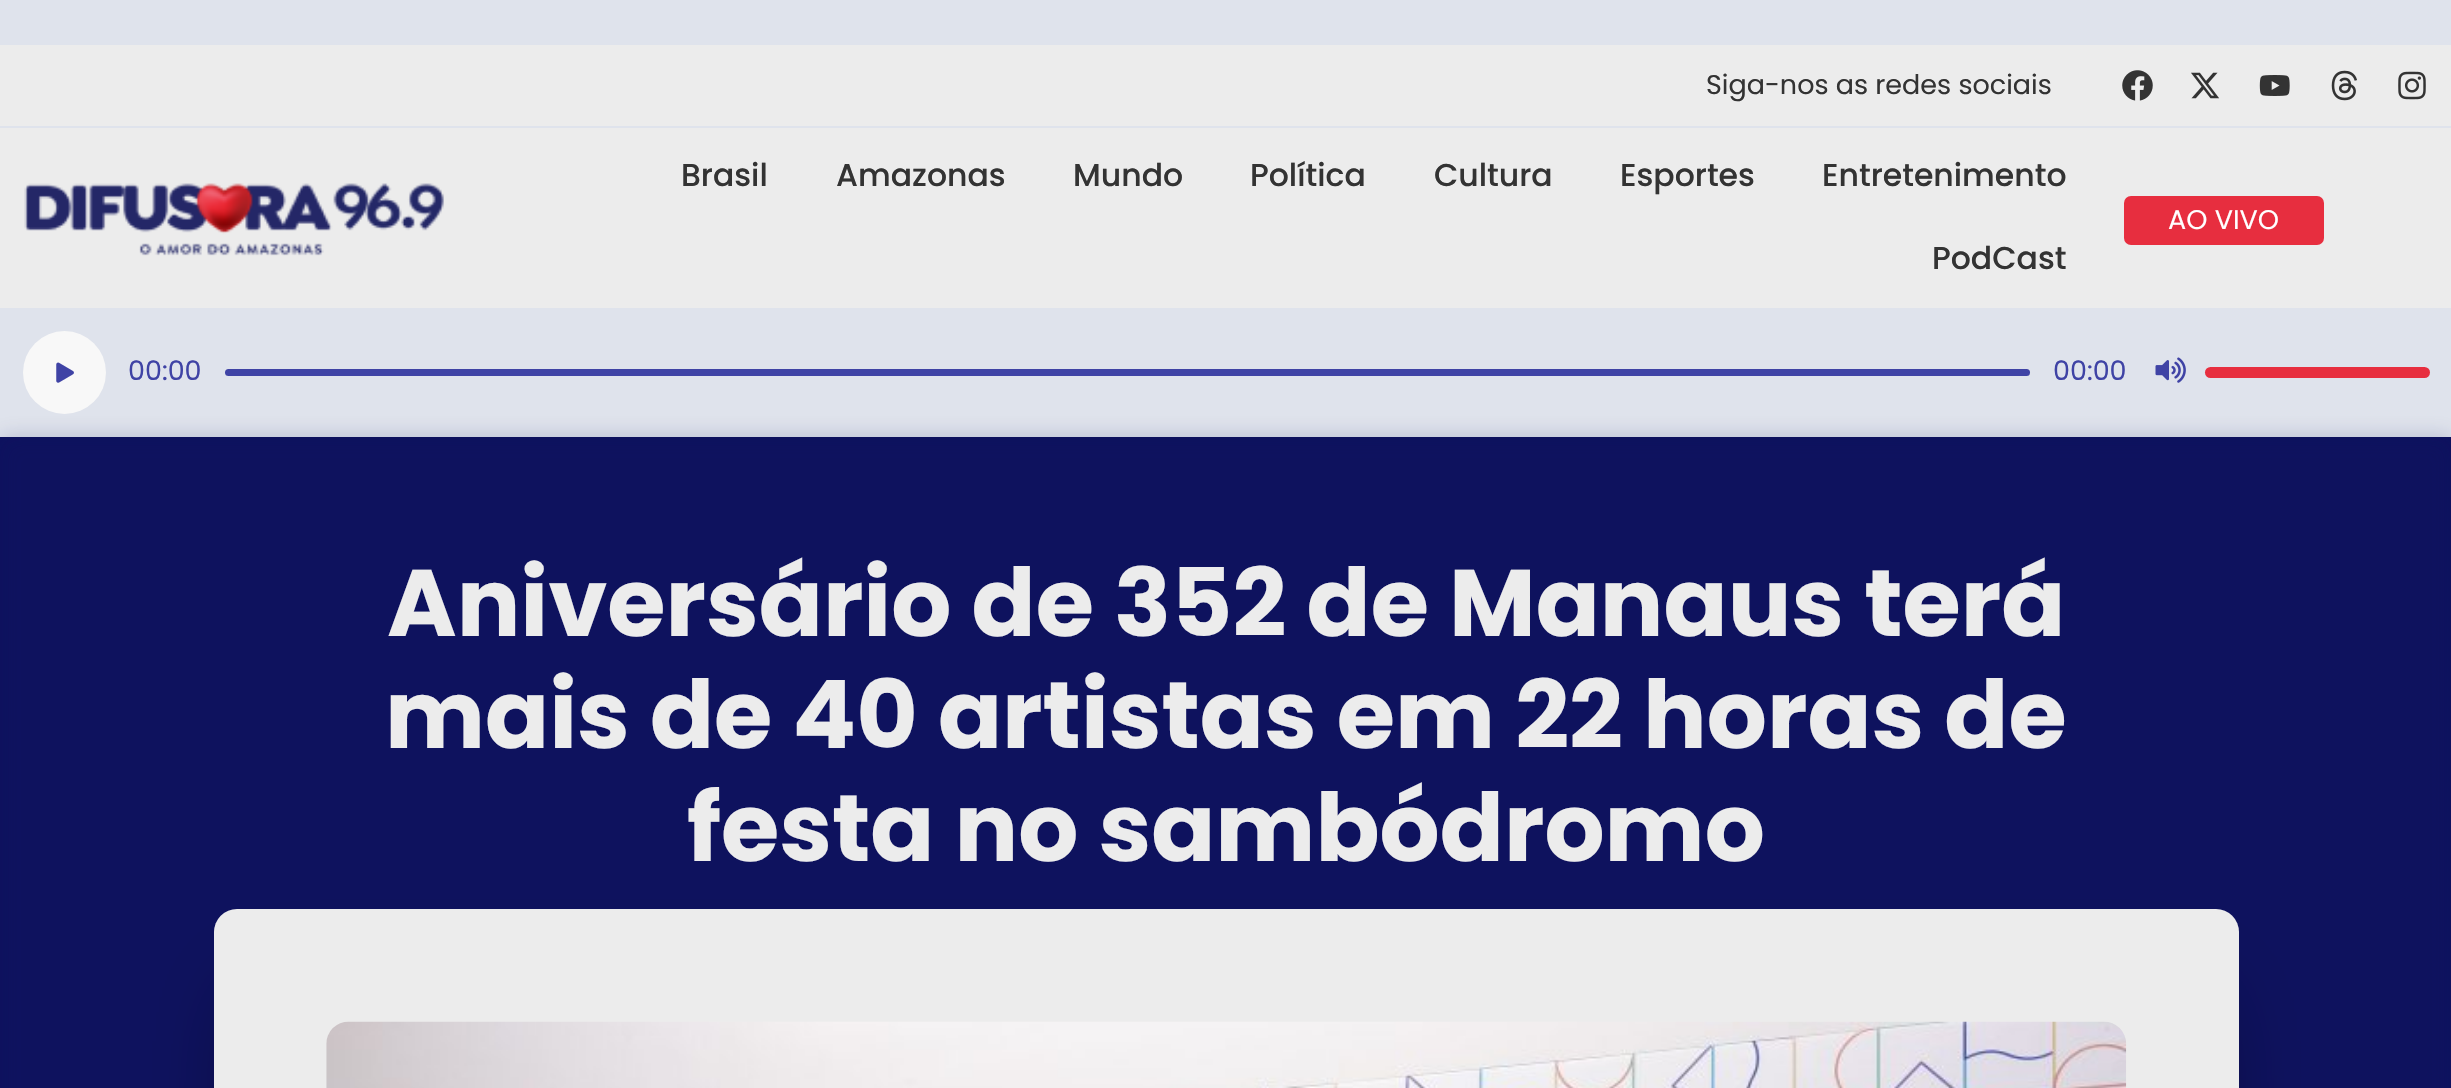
void draw(SkCanvas* canvas) {
    SkPaint paint;
    paint.setAntiAlias(true);
    auto face = [&](const char* family, int weight, float size, bool italic = false) {
        SkFontStyle style(weight, SkFontStyle::kNormal_Width,
            italic ? SkFontStyle::kItalic_Slant : SkFontStyle::kUpright_Slant);
        SkFont result(fontMgr->matchFamilyStyle(family, style), size);
        result.setSubpixel(true);
        return result;
    };
    auto write = [&](const char* s, float x, float y, const SkFont& font, SkColor color) {
        SkPaint ink(SkColor4f::FromColor(color));
        ink.setAntiAlias(true);
        canvas->drawString(s, x, y, font, ink);
    };
    auto block = [&](float x, float y, float w, float h, SkColor color) {
        SkPaint ink(SkColor4f::FromColor(color));
        ink.setAntiAlias(true);
        canvas->drawRect(SkRect::MakeXYWH(x, y, w, h), ink);
    };
    auto card = [&](float x, float y, float w, float h, float radius, SkColor color) {
        SkPaint ink(SkColor4f::FromColor(color));
        ink.setAntiAlias(true);
        canvas->drawRoundRect(SkRect::MakeXYWH(x, y, w, h), radius, radius, ink);
    };
    auto paste = [&](const char* path, float x, float y, float w, float h) {
        auto image = SkImages::DeferredFromEncodedData(SkData::MakeFromFileName(path));
        canvas->drawImageRect(image, SkRect::MakeXYWH(x, y, w, h), SkSamplingOptions());
    };
    canvas->clear(SkColorSetRGB(223, 227, 236));
    block(0, 45, 2451, 81, SkColorSetRGB(236, 236, 236));
    auto kFont1 = face("Poppins", 400, 27);
    write("Siga-nos as redes sociais", 1706, 94, kFont1, SkColorSetRGB(51, 51, 51));
    paste("pic1.png", 2122, 70, 31, 31);
    paste("pic2.png", 2191, 72, 29, 27);
    paste("pic3.png", 2259, 75, 31, 21);
    paste("pic4.png", 2331, 70, 26, 31);
    paste("pic5.png", 2398, 71, 28, 29);
    block(0, 128, 2451, 180, SkColorSetRGB(236, 236, 236));
    paste("pic6.png", 24, 183, 420, 73);
    auto kFont2 = face("Poppins", 500, 31.5f);
    write("Brasil", 681, 186, kFont2, SkColorSetRGB(51, 51, 51));
    write("Amazonas", 836, 186, kFont2, SkColorSetRGB(51, 51, 51));
    write("Mundo", 1073, 186, kFont2, SkColorSetRGB(51, 51, 51));
    write("Política", 1250, 186, kFont2, SkColorSetRGB(51, 51, 51));
    write("Cultura", 1434, 186, kFont2, SkColorSetRGB(51, 51, 51));
    write("Esportes", 1620, 186, kFont2, SkColorSetRGB(51, 51, 51));
    write("Entretenimento", 1822, 186, kFont2, SkColorSetRGB(51, 51, 51));
    write("PodCast", 1932, 269, kFont2, SkColorSetRGB(51, 51, 51));
    card(2124, 196, 200, 49, 7, SkColorSetRGB(231, 46, 63));
    write("AO VIVO", 2168, 229, kFont1, SK_ColorWHITE);
    block(0, 437, 2451, 651, SkColorSetRGB(12, 16, 94));
    paint.setColor(SkColorSetARGB(51, 22, 25, 97));
    paint.setMaskFilter(SkMaskFilter::MakeBlur(kNormal_SkBlurStyle, 10.5f));
    canvas->drawRect(SkRect::MakeXYWH(0, 437, 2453, 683), paint);
    paint.setMaskFilter(nullptr);
    paint.setColor(SkColorSetRGB(248, 248, 248));
    canvas->drawCircle(64.5f, 372.5f, 41.5f, paint);
    paste("pic7.png", 56, 362, 18, 21);
    write("00:00", 128, 380, kFont1, SkColorSetRGB(63, 67, 165));
    card(225, 369, 1805, 7, 3.5f, SkColorSetRGB(63, 67, 165));
    write("00:00", 2053, 380, kFont1, SkColorSetRGB(63, 67, 165));
    paste("pic8.png", 2155, 357, 31, 26);
    card(2205, 367, 225, 11, 5.5f, SkColorSetRGB(231, 46, 63));
    auto kFont3 = face("Poppins", 700, 94.5f);
    write("Aniversário de 352 de Manaus terá", 387, 636, kFont3, SkColorSetRGB(236, 236, 236));
    write("mais de 40 artistas em 22 horas de", 385, 748, kFont3, SkColorSetRGB(236, 236, 236));
    write("festa no sambódromo", 687, 861, kFont3, SkColorSetRGB(236, 236, 236));
    paint.setColor(SkColorSetARGB(128, 0, 0, 0));
    paint.setMaskFilter(SkMaskFilter::MakeBlur(kNormal_SkBlurStyle, 47));
    canvas->drawRect(SkRect::MakeXYWH(250, 997, 1953, 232), paint);
    paint.setMaskFilter(nullptr);
    card(214, 909, 2025, 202, 23, SkColorSetRGB(236, 236, 236));
    paste("pic9.png", 326, 1021, 1801, 67);
}
